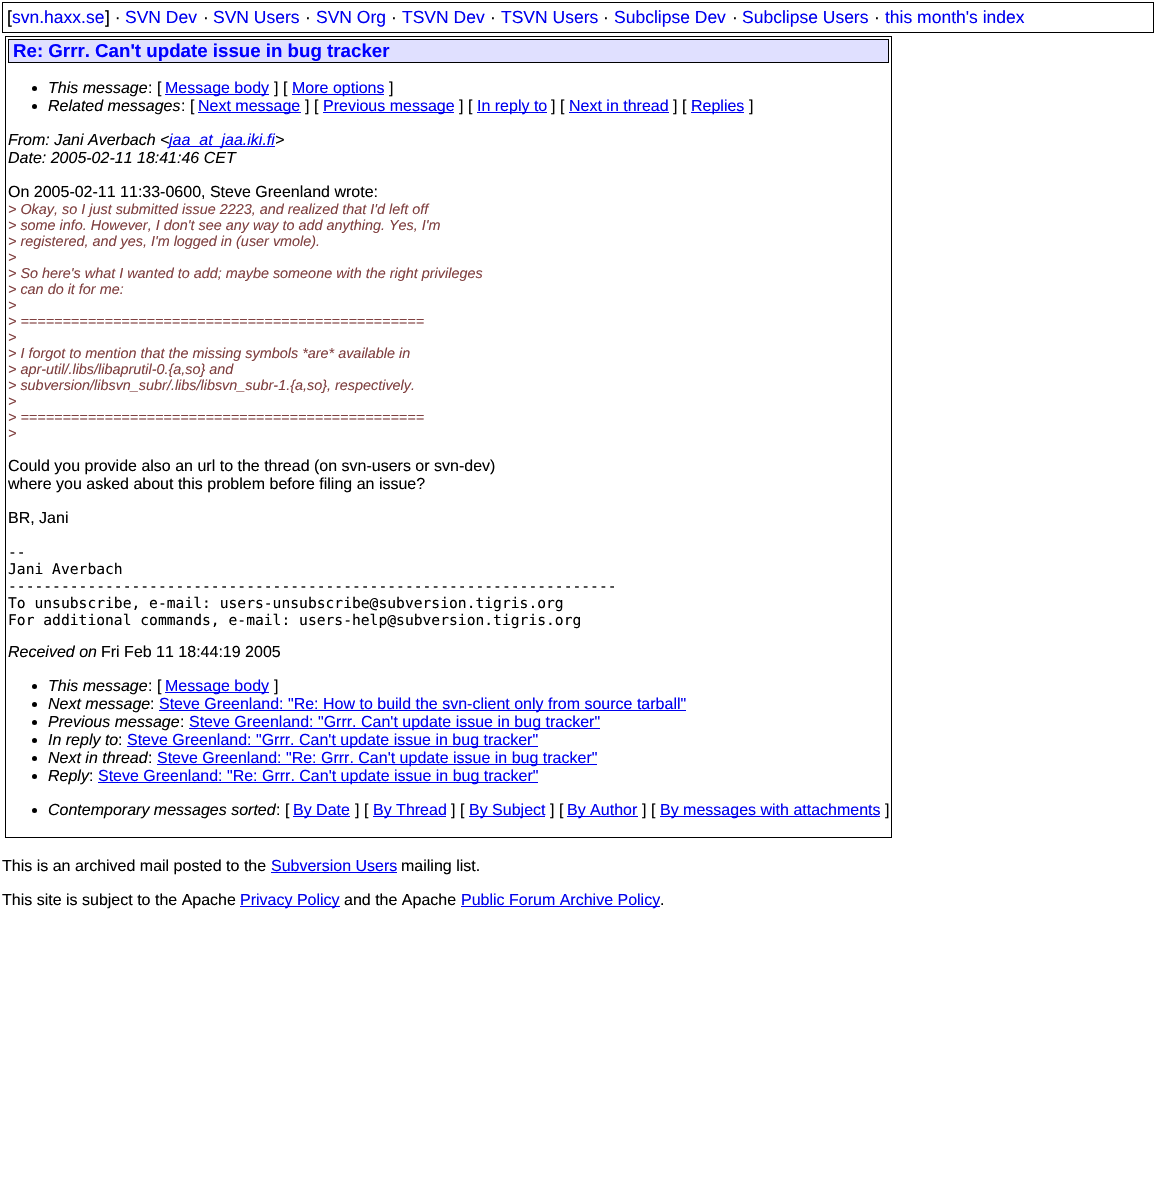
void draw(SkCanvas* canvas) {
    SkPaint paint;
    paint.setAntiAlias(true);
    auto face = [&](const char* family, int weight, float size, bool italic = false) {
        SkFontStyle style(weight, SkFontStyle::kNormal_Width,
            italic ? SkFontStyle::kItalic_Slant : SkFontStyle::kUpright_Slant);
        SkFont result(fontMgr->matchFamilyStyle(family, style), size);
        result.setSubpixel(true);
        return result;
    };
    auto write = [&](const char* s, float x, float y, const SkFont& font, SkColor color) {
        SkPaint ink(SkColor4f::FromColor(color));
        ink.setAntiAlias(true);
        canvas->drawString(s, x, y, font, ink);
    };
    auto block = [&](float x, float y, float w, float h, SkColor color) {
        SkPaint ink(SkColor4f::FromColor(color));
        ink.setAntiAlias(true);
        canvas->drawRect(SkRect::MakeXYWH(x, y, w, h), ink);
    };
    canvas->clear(SK_ColorWHITE);
    paint.setStyle(SkPaint::kStroke_Style);
    paint.setStrokeWidth(1);
    paint.setColor(SK_ColorBLACK);
    canvas->drawRect(SkRect::MakeXYWH(2.5f, 2.5f, 1151, 30), paint);
    auto kFont1 = face("Liberation Sans", 400, 17.5f);
    write("[", 7, 23, kFont1, SK_ColorBLACK);
    write("svn.haxx.se", 12, 23, kFont1, SkColorSetRGB(0, 0, 238));
    write("] ·", 105, 23, kFont1, SK_ColorBLACK);
    write("SVN Dev", 125, 23, kFont1, SkColorSetRGB(0, 0, 238));
    write("·", 203, 23, kFont1, SK_ColorBLACK);
    write("SVN Users", 213, 23, kFont1, SkColorSetRGB(0, 0, 238));
    write("·", 305, 23, kFont1, SK_ColorBLACK);
    write("SVN Org", 316, 23, kFont1, SkColorSetRGB(0, 0, 238));
    write("·", 391, 23, kFont1, SK_ColorBLACK);
    write("TSVN Dev", 402, 23, kFont1, SkColorSetRGB(0, 0, 238));
    write("·", 490, 23, kFont1, SK_ColorBLACK);
    write("TSVN Users", 501, 23, kFont1, SkColorSetRGB(0, 0, 238));
    write("·", 603, 23, kFont1, SK_ColorBLACK);
    write("Subclipse Dev", 614, 23, kFont1, SkColorSetRGB(0, 0, 238));
    write("·", 732, 23, kFont1, SK_ColorBLACK);
    write("Subclipse Users", 742, 23, kFont1, SkColorSetRGB(0, 0, 238));
    write("·", 874, 23, kFont1, SK_ColorBLACK);
    write("this month's index", 885, 23, kFont1, SkColorSetRGB(0, 0, 238));
    canvas->drawRect(SkRect::MakeXYWH(5.5f, 36.5f, 886, 801), paint);
    paint.setStyle(SkPaint::kFill_Style);
    paint.setColor(SkColorSetRGB(224, 224, 255));
    canvas->drawRect(SkRect::MakeXYWH(8.5f, 39.5f, 880, 23), paint);
    paint.setStyle(SkPaint::kStroke_Style);
    paint.setColor(SK_ColorBLACK);
    canvas->drawRect(SkRect::MakeXYWH(8.5f, 39.5f, 880, 23), paint);
    auto kFont2 = face("Liberation Sans", 700, 18.7f);
    write("Re: Grrr. Can't update issue in bug tracker", 13, 57, kFont2, SkColorSetRGB(0, 0, 255));
    paint.setStyle(SkPaint::kFill_Style);
    canvas->drawCircle(34.5f, 88.5f, 2.5f, paint);
    auto kFont3 = face("Liberation Sans", 400, 16, true);
    write("This message", 48, 93, kFont3, SK_ColorBLACK);
    auto kFont4 = face("Liberation Sans", 400, 16);
    write(": [", 148, 93, kFont4, SK_ColorBLACK);
    block(165, 94, 104, 1, SkColorSetRGB(0, 0, 238));
    write("Message body", 165, 93, kFont4, SkColorSetRGB(0, 0, 238));
    write("] [", 274, 93, kFont4, SK_ColorBLACK);
    block(292, 94, 92, 1, SkColorSetRGB(0, 0, 238));
    write("More options", 292, 93, kFont4, SkColorSetRGB(0, 0, 238));
    write("]", 389, 93, kFont4, SK_ColorBLACK);
    canvas->drawCircle(34.5f, 106.5f, 2.5f, paint);
    write("Related messages", 48, 111, kFont3, SK_ColorBLACK);
    write(": [", 181, 111, kFont4, SK_ColorBLACK);
    block(198, 112, 103, 1, SkColorSetRGB(0, 0, 238));
    write("Next message", 198, 111, kFont4, SkColorSetRGB(0, 0, 238));
    write("] [", 305, 111, kFont4, SK_ColorBLACK);
    block(323, 112, 131, 1, SkColorSetRGB(0, 0, 238));
    write("Previous message", 323, 111, kFont4, SkColorSetRGB(0, 0, 238));
    write("] [", 459, 111, kFont4, SK_ColorBLACK);
    block(477, 112, 70, 1, SkColorSetRGB(0, 0, 238));
    write("In reply to", 477, 111, kFont4, SkColorSetRGB(0, 0, 238));
    write("] [", 551, 111, kFont4, SK_ColorBLACK);
    write("Next in thread", 569, 111, kFont4, SkColorSetRGB(0, 0, 238));
    block(569, 112, 100, 1, SkColorSetRGB(0, 0, 238));
    write("] [", 673, 111, kFont4, SK_ColorBLACK);
    block(691, 112, 53, 1, SkColorSetRGB(0, 0, 238));
    write("Replies", 691, 111, kFont4, SkColorSetRGB(0, 0, 238));
    write("]", 749, 111, kFont4, SK_ColorBLACK);
    write("From: Jani Averbach <", 8, 145, kFont3, SK_ColorBLACK);
    block(169, 146, 106, 1, SkColorSetRGB(0, 0, 238));
    write("jaa_at_jaa.iki.fi", 169, 145, kFont3, SkColorSetRGB(0, 0, 238));
    write(">", 275, 145, kFont3, SK_ColorBLACK);
    write("Date: 2005-02-11 18:41:46 CET", 8, 163, kFont3, SK_ColorBLACK);
    write("On 2005-02-11 11:33-0600, Steve Greenland wrote:", 8, 197, kFont4, SK_ColorBLACK);
    auto kFont5 = face("Liberation Sans", 400, 14.4f, true);
    write("> Okay, so I just submitted issue 2223, and realized that I'd left off", 8, 214, kFont5, SkColorSetRGB(128, 64, 64));
    write("> some info. However, I don't see any way to add anything. Yes, I'm", 8, 230, kFont5, SkColorSetRGB(128, 64, 64));
    write("> registered, and yes, I'm logged in (user vmole).", 8, 246, kFont5, SkColorSetRGB(128, 64, 64));
    write(">", 8, 262, kFont5, SkColorSetRGB(128, 64, 64));
    write("> So here's what I wanted to add; maybe someone with the right privileges", 8, 278, kFont5, SkColorSetRGB(128, 64, 64));
    write("> can do it for me:", 8, 294, kFont5, SkColorSetRGB(128, 64, 64));
    write(">", 8, 310, kFont5, SkColorSetRGB(128, 64, 64));
    write("> ================================================", 8, 326, kFont5, SkColorSetRGB(128, 64, 64));
    write(">", 8, 342, kFont5, SkColorSetRGB(128, 64, 64));
    write("> I forgot to mention that the missing symbols *are* available in", 8, 358, kFont5, SkColorSetRGB(128, 64, 64));
    write("> apr-util/.libs/libaprutil-0.{a,so} and", 8, 374, kFont5, SkColorSetRGB(128, 64, 64));
    write("> subversion/libsvn_subr/.libs/libsvn_subr-1.{a,so}, respectively.", 8, 390, kFont5, SkColorSetRGB(128, 64, 64));
    write(">", 8, 406, kFont5, SkColorSetRGB(128, 64, 64));
    write("> ================================================", 8, 422, kFont5, SkColorSetRGB(128, 64, 64));
    write(">", 8, 438, kFont5, SkColorSetRGB(128, 64, 64));
    write("Could you provide also an url to the thread (on svn-users or svn-dev)", 8, 471, kFont4, SK_ColorBLACK);
    write("where you asked about this problem before filing an issue?", 8, 489, kFont4, SK_ColorBLACK);
    write("BR, Jani", 8, 523, kFont4, SK_ColorBLACK);
    auto kFont6 = face("DejaVu Sans Mono", 400, 14.65f);
    write("--", 8, 557, kFont6, SK_ColorBLACK);
    write("Jani Averbach", 8, 574, kFont6, SK_ColorBLACK);
    write("---------------------------------------------------------------------", 8, 591, kFont6, SK_ColorBLACK);
    write("To unsubscribe, e-mail: users-unsubscribe@subversion.tigris.org", 8, 608, kFont6, SK_ColorBLACK);
    write("For additional commands, e-mail: users-help@subversion.tigris.org", 8, 625, kFont6, SK_ColorBLACK);
    write("Received on", 8, 657, kFont3, SK_ColorBLACK);
    write("Fri Feb 11 18:44:19 2005", 101, 657, kFont4, SK_ColorBLACK);
    canvas->drawCircle(34.5f, 686.5f, 2.5f, paint);
    write("This message", 48, 691, kFont3, SK_ColorBLACK);
    write(": [", 148, 691, kFont4, SK_ColorBLACK);
    block(165, 692, 104, 1, SkColorSetRGB(0, 0, 238));
    write("Message body", 165, 691, kFont4, SkColorSetRGB(0, 0, 238));
    write("]", 274, 691, kFont4, SK_ColorBLACK);
    canvas->drawCircle(34.5f, 704.5f, 2.5f, paint);
    write("Next message", 48, 709, kFont3, SK_ColorBLACK);
    write(":", 150, 709, kFont4, SK_ColorBLACK);
    block(159, 710, 527, 1, SkColorSetRGB(0, 0, 238));
    write("Steve Greenland: \"Re: How to build the svn-client only from source tarball\"", 159, 709, kFont4, SkColorSetRGB(0, 0, 238));
    canvas->drawCircle(34.5f, 722.5f, 2.5f, paint);
    write("Previous message", 48, 727, kFont3, SK_ColorBLACK);
    write(":", 180, 727, kFont4, SK_ColorBLACK);
    block(189, 728, 411, 1, SkColorSetRGB(0, 0, 238));
    write("Steve Greenland: \"Grrr. Can't update issue in bug tracker\"", 189, 727, kFont4, SkColorSetRGB(0, 0, 238));
    canvas->drawCircle(34.5f, 740.5f, 2.5f, paint);
    write("In reply to", 48, 745, kFont3, SK_ColorBLACK);
    write(":", 118, 745, kFont4, SK_ColorBLACK);
    block(127, 746, 411, 1, SkColorSetRGB(0, 0, 238));
    write("Steve Greenland: \"Grrr. Can't update issue in bug tracker\"", 127, 745, kFont4, SkColorSetRGB(0, 0, 238));
    canvas->drawCircle(34.5f, 758.5f, 2.5f, paint);
    write("Next in thread", 48, 763, kFont3, SK_ColorBLACK);
    write(":", 148, 763, kFont4, SK_ColorBLACK);
    block(157, 764, 440, 1, SkColorSetRGB(0, 0, 238));
    write("Steve Greenland: \"Re: Grrr. Can't update issue in bug tracker\"", 157, 763, kFont4, SkColorSetRGB(0, 0, 238));
    canvas->drawCircle(34.5f, 776.5f, 2.5f, paint);
    write("Reply", 48, 781, kFont3, SK_ColorBLACK);
    write(":", 89, 781, kFont4, SK_ColorBLACK);
    block(98, 782, 440, 1, SkColorSetRGB(0, 0, 238));
    write("Steve Greenland: \"Re: Grrr. Can't update issue in bug tracker\"", 98, 781, kFont4, SkColorSetRGB(0, 0, 238));
    canvas->drawCircle(34.5f, 810.5f, 2.5f, paint);
    write("Contemporary messages sorted", 48, 815, kFont3, SK_ColorBLACK);
    write(": [", 276, 815, kFont4, SK_ColorBLACK);
    block(293, 816, 57, 1, SkColorSetRGB(0, 0, 238));
    write("By Date", 293, 815, kFont4, SkColorSetRGB(0, 0, 238));
    write("] [", 355, 815, kFont4, SK_ColorBLACK);
    block(373, 816, 73, 1, SkColorSetRGB(0, 0, 238));
    write("By Thread", 373, 815, kFont4, SkColorSetRGB(0, 0, 238));
    write("] [", 451, 815, kFont4, SK_ColorBLACK);
    block(469, 816, 76, 1, SkColorSetRGB(0, 0, 238));
    write("By Subject", 469, 815, kFont4, SkColorSetRGB(0, 0, 238));
    write("] [", 550, 815, kFont4, SK_ColorBLACK);
    block(567, 816, 71, 1, SkColorSetRGB(0, 0, 238));
    write("By Author", 567, 815, kFont4, SkColorSetRGB(0, 0, 238));
    write("] [", 642, 815, kFont4, SK_ColorBLACK);
    block(660, 816, 220, 1, SkColorSetRGB(0, 0, 238));
    write("By messages with attachments", 660, 815, kFont4, SkColorSetRGB(0, 0, 238));
    write("]", 885, 815, kFont4, SK_ColorBLACK);
    write("This is an archived mail posted to the", 2, 871, kFont4, SK_ColorBLACK);
    write("Subversion Users", 271, 871, kFont4, SkColorSetRGB(0, 0, 238));
    block(271, 872, 126, 1, SkColorSetRGB(0, 0, 238));
    write("mailing list.", 401, 871, kFont4, SK_ColorBLACK);
    write("This site is subject to the Apache", 2, 905, kFont4, SK_ColorBLACK);
    block(240, 906, 100, 1, SkColorSetRGB(0, 0, 238));
    write("Privacy Policy", 240, 905, kFont4, SkColorSetRGB(0, 0, 238));
    write("and the Apache", 344, 905, kFont4, SK_ColorBLACK);
    block(461, 906, 199, 1, SkColorSetRGB(0, 0, 238));
    write("Public Forum Archive Policy", 461, 905, kFont4, SkColorSetRGB(0, 0, 238));
    write(".", 660, 905, kFont4, SK_ColorBLACK);
}
